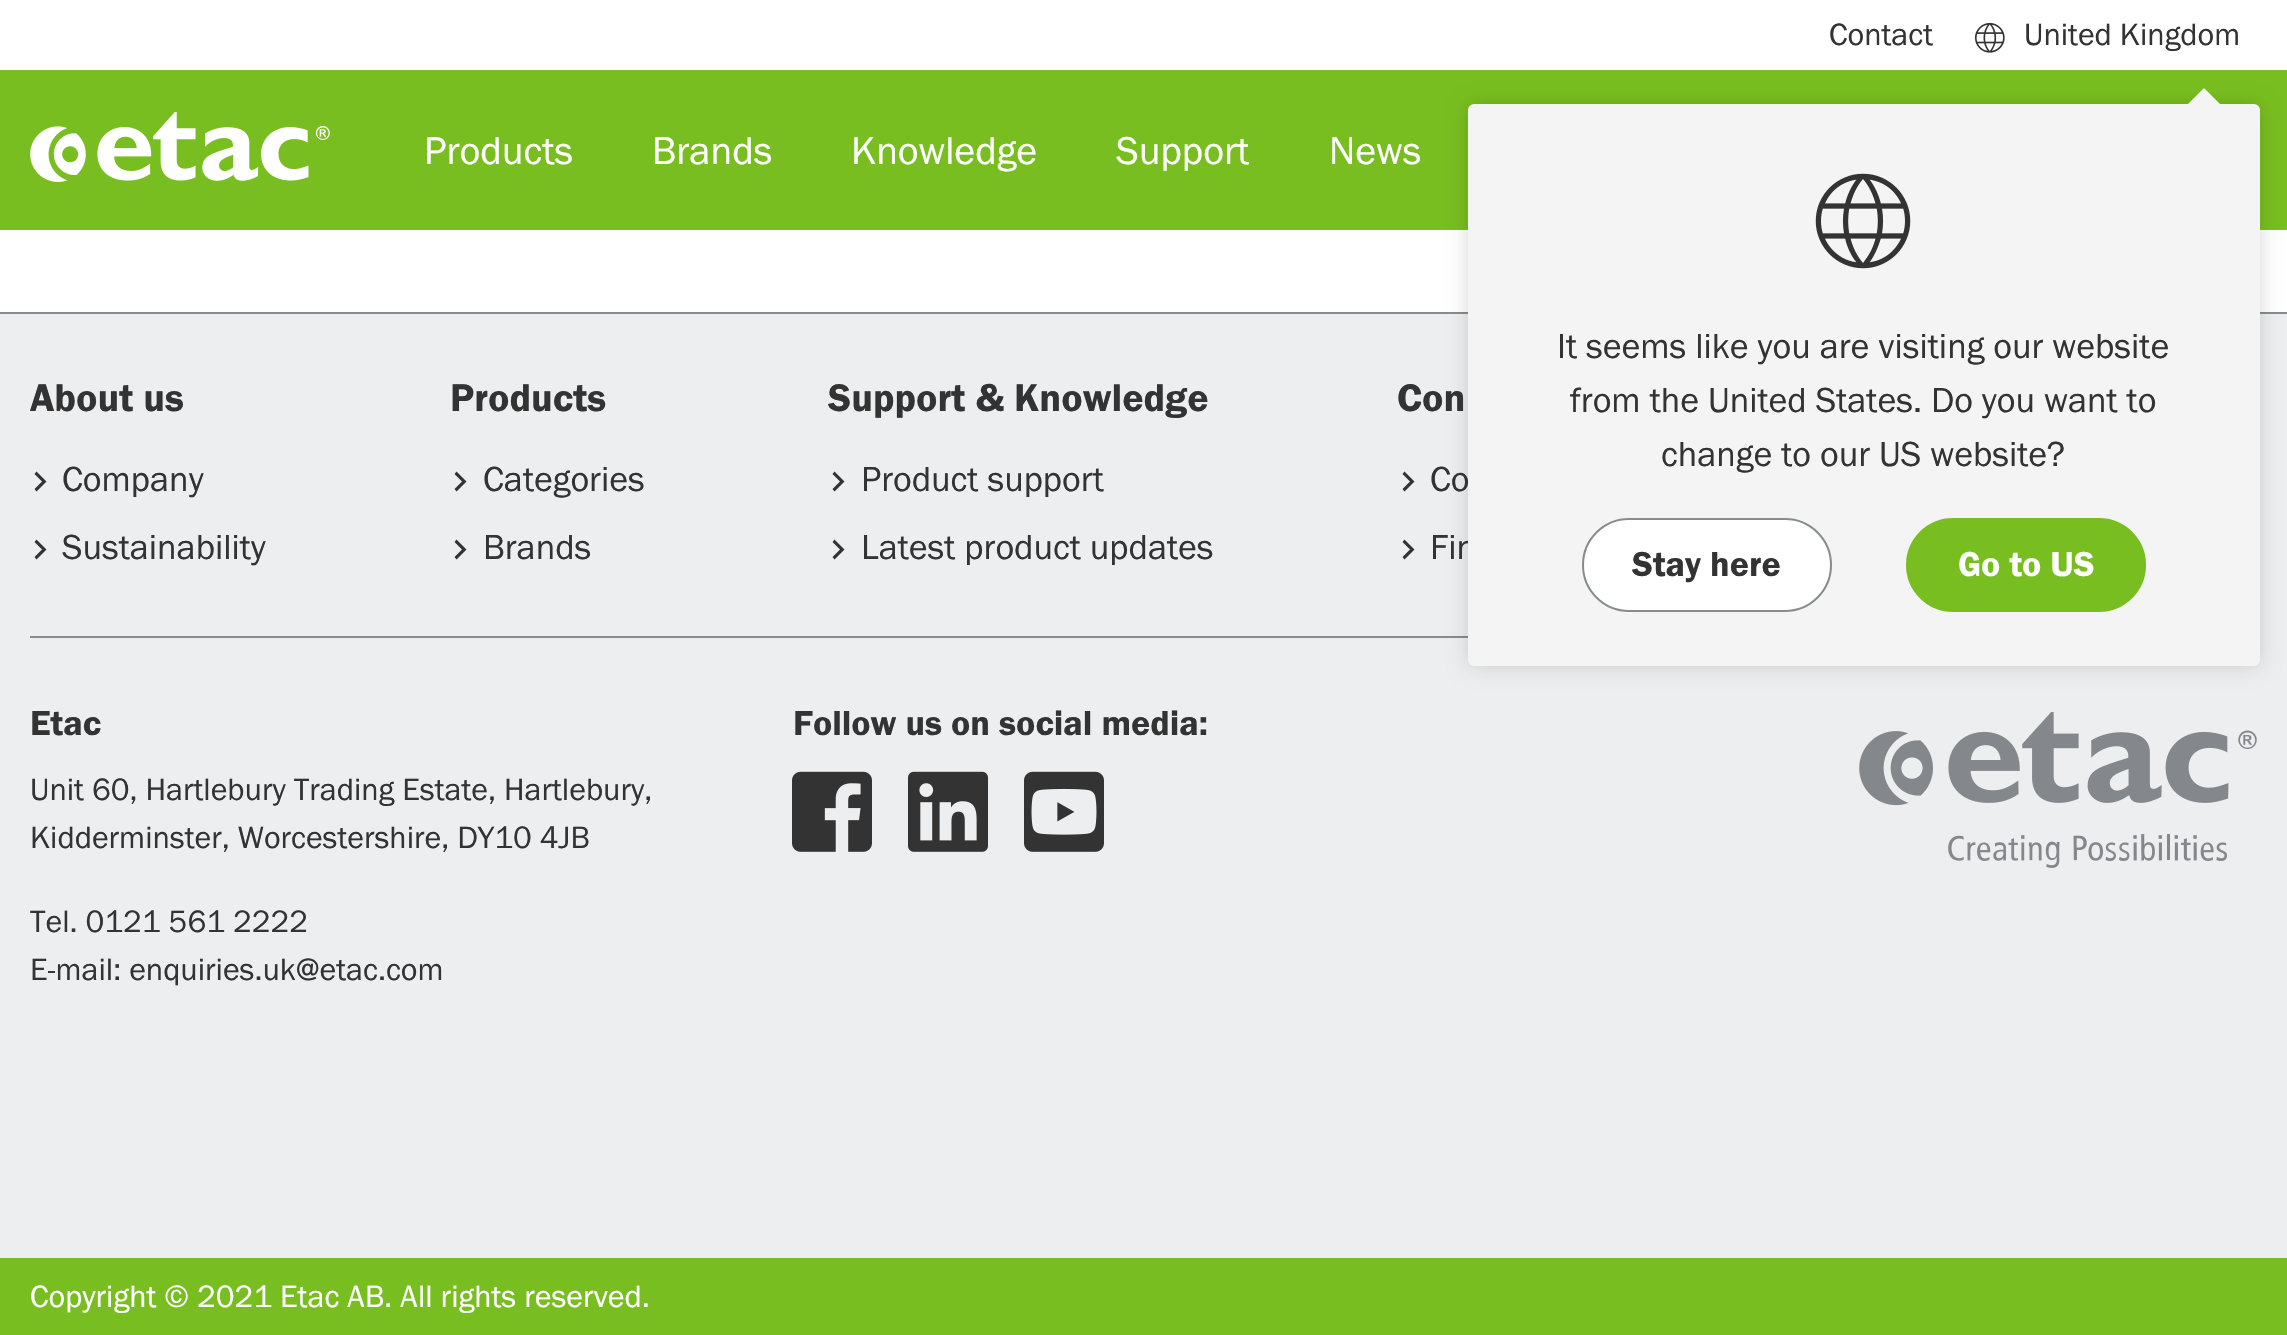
void draw(SkCanvas* canvas) {
    SkPaint paint;
    paint.setAntiAlias(true);
    auto face = [&](const char* family, int weight, float size, bool italic = false) {
        SkFontStyle style(weight, SkFontStyle::kNormal_Width,
            italic ? SkFontStyle::kItalic_Slant : SkFontStyle::kUpright_Slant);
        SkFont result(fontMgr->matchFamilyStyle(family, style), size);
        result.setSubpixel(true);
        return result;
    };
    auto write = [&](const char* s, float x, float y, const SkFont& font, SkColor color) {
        SkPaint ink(SkColor4f::FromColor(color));
        ink.setAntiAlias(true);
        canvas->drawString(s, x, y, font, ink);
    };
    auto block = [&](float x, float y, float w, float h, SkColor color) {
        SkPaint ink(SkColor4f::FromColor(color));
        ink.setAntiAlias(true);
        canvas->drawRect(SkRect::MakeXYWH(x, y, w, h), ink);
    };
    auto card = [&](float x, float y, float w, float h, float radius, SkColor color) {
        SkPaint ink(SkColor4f::FromColor(color));
        ink.setAntiAlias(true);
        canvas->drawRoundRect(SkRect::MakeXYWH(x, y, w, h), radius, radius, ink);
    };
    auto paste = [&](const char* path, float x, float y, float w, float h) {
        auto image = SkImages::DeferredFromEncodedData(SkData::MakeFromFileName(path));
        canvas->drawImageRect(image, SkRect::MakeXYWH(x, y, w, h), SkSamplingOptions());
    };
    canvas->clear(SK_ColorWHITE);
    auto kFont1 = face("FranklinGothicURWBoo", 400, 32);
    write("Contact", 1829, 45, kFont1, SkColorSetRGB(51, 51, 51));
    paste("pic1.png", 1974, 22, 31, 31);
    write("United Kingdom", 2024, 45, kFont1, SkColorSetRGB(51, 51, 51));
    block(0, 70, 2287, 160, SkColorSetRGB(120, 190, 32));
    paste("pic2.png", 30, 112, 300, 70);
    auto kFont2 = face("FranklinGothicURWBoo", 400, 40);
    write("Products", 424, 164, kFont2, SK_ColorWHITE);
    write("Brands", 652, 164, kFont2, SK_ColorWHITE);
    write("Knowledge", 851, 164, kFont2, SK_ColorWHITE);
    write("Support", 1116, 164, kFont2, SK_ColorWHITE);
    write("News", 1329, 164, kFont2, SK_ColorWHITE);
    block(0, 314, 2287, 944, SkColorSetRGB(237, 238, 239));
    block(0, 312, 2287, 2, SkColorSetRGB(136, 139, 141));
    block(30, 636, 1438, 2, SkColorSetRGB(136, 139, 141));
    paint.setColor(SkColorSetARGB(38, 0, 0, 0));
    paint.setMaskFilter(SkMaskFilter::MakeBlur(kNormal_SkBlurStyle, 10));
    canvas->drawRoundRect(SkRect::MakeXYWH(1468, 104, 792, 562), 6, 6, paint);
    paint.setMaskFilter(nullptr);
    auto kFont3 = face("FranklinGothicURWBoo", 400, 36);
    write("Fin", 1430, 559, kFont3, SkColorSetRGB(51, 51, 51));
    card(1468, 104, 792, 562, 6, SkColorSetRGB(244, 244, 244));
    paint.setColor(SkColorSetRGB(244, 244, 244));
    canvas->drawPath(SkPathBuilder().moveTo(2220, 104).lineTo(2188, 104).lineTo(2204, 88).close().detach(), paint);
    paste("pic3.png", 1815, 173, 96, 96);
    write("It seems like you are visiting our website", 1557, 358, kFont3, SkColorSetRGB(51, 51, 51));
    write("from the United States. Do you want to", 1570, 412, kFont3, SkColorSetRGB(51, 51, 51));
    write("change to our US website?", 1661, 466, kFont3, SkColorSetRGB(51, 51, 51));
    paint.setColor(SK_ColorWHITE);
    canvas->drawRoundRect(SkRect::MakeXYWH(1583, 519, 248, 92), 46, 46, paint);
    paint.setStyle(SkPaint::kStroke_Style);
    paint.setStrokeWidth(2);
    paint.setColor(SkColorSetRGB(136, 139, 141));
    canvas->drawRoundRect(SkRect::MakeXYWH(1583, 519, 248, 92), 46, 46, paint);
    auto kFont4 = face("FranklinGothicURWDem", 400, 36);
    write("Stay here", 1632, 576, kFont4, SkColorSetRGB(51, 51, 51));
    paint.setStyle(SkPaint::kFill_Style);
    paint.setColor(SkColorSetRGB(120, 190, 32));
    canvas->drawRoundRect(SkRect::MakeXYWH(1907, 519, 238, 92), 46, 46, paint);
    paint.setStyle(SkPaint::kStroke_Style);
    canvas->drawRoundRect(SkRect::MakeXYWH(1907, 519, 238, 92), 46, 46, paint);
    write("Go to US", 1958, 576, kFont4, SK_ColorWHITE);
    auto kFont5 = face("FranklinGothicURWDem", 400, 40);
    write("About us", 30, 411, kFont5, SkColorSetRGB(51, 51, 51));
    paint.setStyle(SkPaint::kFill_Style);
    paint.setColor(SkColorSetRGB(51, 51, 51));
    canvas->drawPath(SkPathBuilder().moveTo(34.5f, 489).lineTo(42, 481.5f).lineTo(34.5f, 474).lineTo(36.5f, 471.5f).lineTo(46.5f, 481.5f).lineTo(36.5f, 491.5f).close().detach(), paint);
    write("Company", 62, 491, kFont3, SkColorSetRGB(51, 51, 51));
    canvas->drawPath(SkPathBuilder().moveTo(34.5f, 557).lineTo(42, 549.5f).lineTo(34.5f, 542).lineTo(36.5f, 539.5f).lineTo(46.5f, 549.5f).lineTo(36.5f, 559.5f).close().detach(), paint);
    write("Sustainability", 62, 559, kFont3, SkColorSetRGB(51, 51, 51));
    write("Products", 450, 411, kFont5, SkColorSetRGB(51, 51, 51));
    canvas->drawPath(SkPathBuilder().moveTo(454.5f, 489).lineTo(462, 481.5f).lineTo(454.5f, 474).lineTo(456.5f, 471.5f).lineTo(466.5f, 481.5f).lineTo(456.5f, 491.5f).close().detach(), paint);
    write("Categories", 483, 491, kFont3, SkColorSetRGB(51, 51, 51));
    canvas->drawPath(SkPathBuilder().moveTo(454.5f, 557).lineTo(462, 549.5f).lineTo(454.5f, 542).lineTo(456.5f, 539.5f).lineTo(466.5f, 549.5f).lineTo(456.5f, 559.5f).close().detach(), paint);
    write("Brands", 483, 559, kFont3, SkColorSetRGB(51, 51, 51));
    write("Support & Knowledge", 828, 411, kFont5, SkColorSetRGB(51, 51, 51));
    canvas->drawPath(SkPathBuilder().moveTo(832.5f, 489).lineTo(840, 481.5f).lineTo(832.5f, 474).lineTo(834.5f, 471.5f).lineTo(844.5f, 481.5f).lineTo(834.5f, 491.5f).close().detach(), paint);
    write("Product support", 861, 491, kFont3, SkColorSetRGB(51, 51, 51));
    canvas->drawPath(SkPathBuilder().moveTo(832.5f, 557).lineTo(840, 549.5f).lineTo(832.5f, 542).lineTo(834.5f, 539.5f).lineTo(844.5f, 549.5f).lineTo(834.5f, 559.5f).close().detach(), paint);
    write("Latest product updates", 861, 559, kFont3, SkColorSetRGB(51, 51, 51));
    write("Con", 1397, 411, kFont5, SkColorSetRGB(51, 51, 51));
    canvas->drawPath(SkPathBuilder().moveTo(1402.5f, 489).lineTo(1410, 481.5f).lineTo(1402.5f, 474).lineTo(1404.5f, 471.5f).lineTo(1414.5f, 481.5f).lineTo(1404.5f, 491.5f).close().detach(), paint);
    write("Co", 1430, 491, kFont3, SkColorSetRGB(51, 51, 51));
    canvas->drawPath(SkPathBuilder().moveTo(1402.5f, 557).lineTo(1410, 549.5f).lineTo(1402.5f, 542).lineTo(1404.5f, 539.5f).lineTo(1414.5f, 549.5f).lineTo(1404.5f, 559.5f).close().detach(), paint);
    write("Etac", 30, 735, kFont4, SkColorSetRGB(51, 51, 51));
    write("Unit 60, Hartlebury Trading Estate, Hartlebury,", 30, 800, kFont1, SkColorSetRGB(51, 51, 51));
    write("Kidderminster, Worcestershire, DY10 4JB", 30, 848, kFont1, SkColorSetRGB(51, 51, 51));
    write("Tel. 0121 561 2222", 30, 932, kFont1, SkColorSetRGB(51, 51, 51));
    write("E-mail: enquiries.uk@etac.com", 30, 980, kFont1, SkColorSetRGB(51, 51, 51));
    write("Follow us on social media:", 793, 735, kFont4, SkColorSetRGB(51, 51, 51));
    paste("pic4.png", 792, 771, 80, 81);
    paste("pic5.png", 908, 771, 80, 81);
    paste("pic6.png", 1024, 771, 80, 81);
    paste("pic7.png", 1859, 712, 398, 156);
    block(0, 1258, 2287, 77, SkColorSetRGB(120, 190, 32));
    write("Copyright © 2021 Etac AB. All rights reserved.", 30, 1307, kFont1, SK_ColorWHITE);
}
